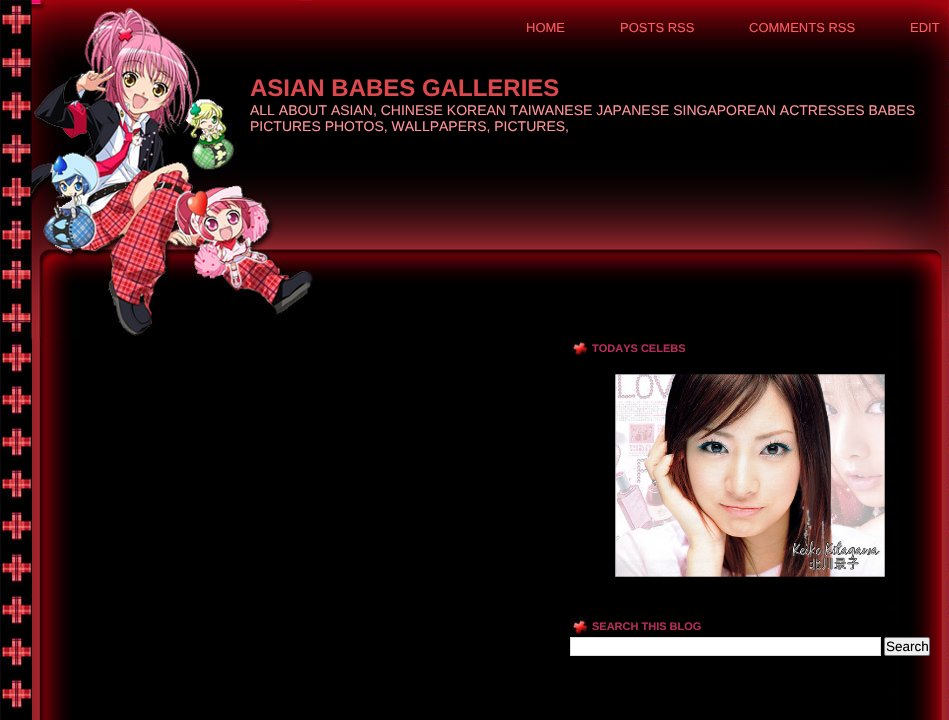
void draw(SkCanvas* canvas) {
    SkPaint paint;
    paint.setAntiAlias(true);
    auto face = [&](const char* family, int weight, float size, bool italic = false) {
        SkFontStyle style(weight, SkFontStyle::kNormal_Width,
            italic ? SkFontStyle::kItalic_Slant : SkFontStyle::kUpright_Slant);
        SkFont result(fontMgr->matchFamilyStyle(family, style), size);
        result.setSubpixel(true);
        return result;
    };
    auto write = [&](const char* s, float x, float y, const SkFont& font, SkColor color) {
        SkPaint ink(SkColor4f::FromColor(color));
        ink.setAntiAlias(true);
        canvas->drawString(s, x, y, font, ink);
    };
    auto paste = [&](const char* path, float x, float y, float w, float h) {
        auto image = SkImages::DeferredFromEncodedData(SkData::MakeFromFileName(path));
        canvas->drawImageRect(image, SkRect::MakeXYWH(x, y, w, h), SkSamplingOptions());
    };
    canvas->clear(SK_ColorWHITE);
    paste("pic1.png", 0, 339, 949, 381);
    paste("pic2.png", 0, 0, 949, 339);
    auto kFont1 = face("Liberation Sans", 400, 13);
    write("HOME", 526, 32, kFont1, SkColorSetRGB(255, 91, 99));
    write("POSTS RSS", 620, 32, kFont1, SkColorSetRGB(255, 91, 99));
    write("COMMENTS RSS", 749, 32, kFont1, SkColorSetRGB(255, 91, 99));
    write("EDIT", 910, 32, kFont1, SkColorSetRGB(255, 91, 99));
    auto kFont2 = face("Liberation Sans", 700, 24);
    write("ASIAN BABES GALLERIES", 250, 96, kFont2, SkColorSetRGB(220, 72, 78));
    auto kFont3 = face("Liberation Sans", 400, 14);
    write("ALL ABOUT ASIAN, CHINESE KOREAN TAIWANESE JAPANESE SINGAPOREAN ACTRESSES BABES", 250, 115, kFont3, SkColorSetRGB(255, 147, 152));
    write("PICTURES PHOTOS, WALLPAPERS, PICTURES,", 250, 131, kFont3, SkColorSetRGB(255, 147, 152));
    paste("pic3.png", 570, 339, 20, 18);
    auto kFont4 = face("Liberation Sans", 700, 11);
    write("TODAYS CELEBS", 592, 352, kFont4, SkColorSetRGB(181, 44, 88));
    paste("pic4.png", 615, 374, 270, 203);
    paste("pic5.png", 570, 617, 20, 19);
    write("SEARCH THIS BLOG", 592, 630, kFont4, SkColorSetRGB(181, 44, 88));
    paint.setColor(SK_ColorWHITE);
    canvas->drawRect(SkRect::MakeXYWH(570.5f, 637.5f, 310, 18), paint);
    paint.setStyle(SkPaint::kStroke_Style);
    paint.setStrokeWidth(1);
    paint.setColor(SkColorSetRGB(221, 221, 221));
    canvas->drawRect(SkRect::MakeXYWH(570.5f, 637.5f, 310, 18), paint);
    paint.setStyle(SkPaint::kFill_Style);
    paint.setColor(SkColorSetRGB(239, 239, 239));
    canvas->drawRoundRect(SkRect::MakeXYWH(884.5f, 637.5f, 45, 18), 1.5f, 1.5f, paint);
    paint.setStyle(SkPaint::kStroke_Style);
    paint.setColor(SkColorSetRGB(118, 118, 118));
    canvas->drawRoundRect(SkRect::MakeXYWH(884.5f, 637.5f, 45, 18), 1.5f, 1.5f, paint);
    auto kFont5 = face("Liberation Sans", 400, 13.5f);
    write("Search", 886, 651, kFont5, SK_ColorBLACK);
}
